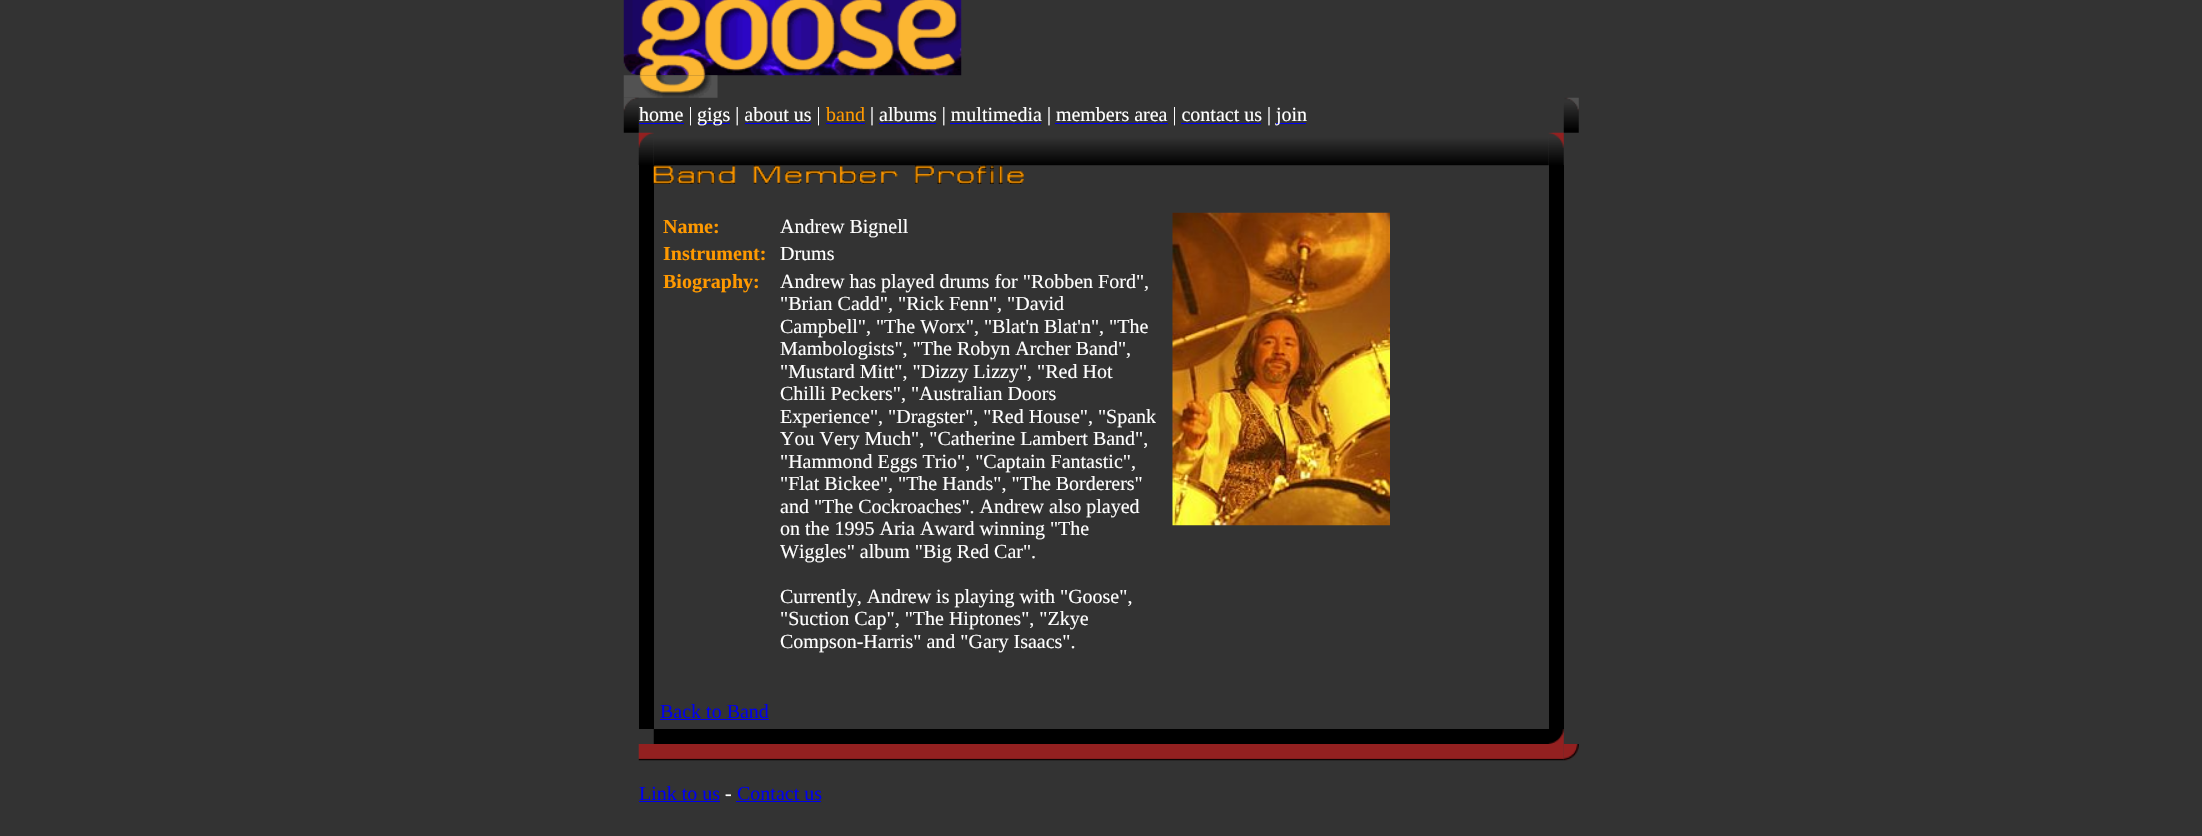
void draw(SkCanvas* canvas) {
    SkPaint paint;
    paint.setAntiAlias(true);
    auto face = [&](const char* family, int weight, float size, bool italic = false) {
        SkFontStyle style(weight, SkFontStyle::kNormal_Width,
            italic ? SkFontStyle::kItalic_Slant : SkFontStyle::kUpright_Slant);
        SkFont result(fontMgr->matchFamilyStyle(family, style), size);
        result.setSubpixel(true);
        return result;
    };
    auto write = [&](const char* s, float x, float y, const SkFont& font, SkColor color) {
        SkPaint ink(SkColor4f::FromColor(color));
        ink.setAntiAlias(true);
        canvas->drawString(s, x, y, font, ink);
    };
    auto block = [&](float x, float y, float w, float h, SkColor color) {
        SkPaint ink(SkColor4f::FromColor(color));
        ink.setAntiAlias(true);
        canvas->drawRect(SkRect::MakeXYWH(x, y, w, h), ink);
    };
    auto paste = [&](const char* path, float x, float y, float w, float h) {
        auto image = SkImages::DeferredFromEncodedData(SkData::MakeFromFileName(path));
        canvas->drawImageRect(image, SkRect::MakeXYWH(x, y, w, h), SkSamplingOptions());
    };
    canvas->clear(SkColorSetRGB(51, 51, 51));
    paste("pic1.png", 623, 0, 339, 76);
    paste("pic2.png", 623, 75, 95, 23);
    paste("pic3.png", 623, 97, 16, 36);
    block(639, 123, 45, 1, SkColorSetRGB(0, 0, 238));
    auto kFont1 = face("Liberation Serif", 400, 20);
    write("home |", 639, 121, kFont1, SK_ColorWHITE);
    block(698, 123, 32, 1, SkColorSetRGB(0, 0, 238));
    write("gigs | about us |", 697, 121, kFont1, SK_ColorWHITE);
    write("band", 826, 121, kFont1, SkColorSetRGB(255, 153, 0));
    block(826, 123, 39, 1, SkColorSetRGB(0, 0, 238));
    write("| albums | multimedia | members area | contact us |", 870, 121, kFont1, SK_ColorWHITE);
    block(1276, 123, 30, 1, SkColorSetRGB(0, 0, 238));
    write("join", 1276, 121, kFont1, SK_ColorWHITE);
    block(745, 123, 66, 1, SkColorSetRGB(0, 0, 238));
    block(879, 123, 57, 1, SkColorSetRGB(0, 0, 238));
    block(950, 123, 91, 1, SkColorSetRGB(0, 0, 238));
    block(1055, 123, 113, 1, SkColorSetRGB(0, 0, 238));
    block(1181, 123, 80, 1, SkColorSetRGB(0, 0, 238));
    paste("pic4.png", 1563, 97, 16, 36);
    paste("pic6.png", 653, 133, 896, 33);
    paste("pic5.png", 638, 132, 16, 33);
    paste("pic7.png", 1548, 132, 16, 33);
    block(639, 165, 15, 564, SK_ColorBLACK);
    paste("pic8.png", 653, 165, 371, 19);
    auto kFont2 = face("Liberation Serif", 700, 20);
    write("Name:", 663, 233, kFont2, SkColorSetRGB(255, 153, 0));
    write("Andrew Bignell", 780, 233, kFont1, SK_ColorWHITE);
    write("Instrument:", 663, 260, kFont2, SkColorSetRGB(255, 153, 0));
    write("Drums", 780, 260, kFont1, SK_ColorWHITE);
    write("Biography:", 663, 288, kFont2, SkColorSetRGB(255, 153, 0));
    write("Andrew has played drums for \"Robben Ford\",", 780, 288, kFont1, SK_ColorWHITE);
    write("\"Brian Cadd\", \"Rick Fenn\", \"David", 780, 310, kFont1, SK_ColorWHITE);
    write("Campbell\", \"The Worx\", \"Blat'n Blat'n\", \"The", 780, 333, kFont1, SK_ColorWHITE);
    write("Mambologists\", \"The Robyn Archer Band\",", 780, 355, kFont1, SK_ColorWHITE);
    write("\"Mustard Mitt\", \"Dizzy Lizzy\", \"Red Hot", 780, 378, kFont1, SK_ColorWHITE);
    write("Chilli Peckers\", \"Australian Doors", 780, 400, kFont1, SK_ColorWHITE);
    write("Experience\", \"Dragster\", \"Red House\", \"Spank", 780, 423, kFont1, SK_ColorWHITE);
    write("You Very Much\", \"Catherine Lambert Band\",", 780, 445, kFont1, SK_ColorWHITE);
    write("\"Hammond Eggs Trio\", \"Captain Fantastic\",", 780, 468, kFont1, SK_ColorWHITE);
    write("\"Flat Bickee\", \"The Hands\", \"The Borderers\"", 780, 490, kFont1, SK_ColorWHITE);
    write("and \"The Cockroaches\". Andrew also played", 780, 513, kFont1, SK_ColorWHITE);
    write("on the 1995 Aria Award winning \"The", 780, 535, kFont1, SK_ColorWHITE);
    write("Wiggles\" album \"Big Red Car\".", 780, 558, kFont1, SK_ColorWHITE);
    write("Currently, Andrew is playing with \"Goose\",", 780, 603, kFont1, SK_ColorWHITE);
    write("\"Suction Cap\", \"The Hiptones\", \"Zkye", 780, 625, kFont1, SK_ColorWHITE);
    write("Compson-Harris\" and \"Gary Isaacs\".", 780, 648, kFont1, SK_ColorWHITE);
    write("Back to Band", 660, 718, kFont1, SkColorSetRGB(0, 0, 238));
    block(660, 719, 109, 1, SkColorSetRGB(0, 0, 238));
    paste("pic9.png", 1172, 212, 218, 314);
    block(1549, 165, 15, 564, SK_ColorBLACK);
    block(654, 729, 895, 15, SK_ColorBLACK);
    block(653, 729, 1, 15, SkColorSetRGB(38, 38, 38));
    paste("pic10.png", 1548, 729, 16, 15);
    paste("pic11.png", 638, 744, 926, 17);
    paste("pic12.png", 1563, 744, 16, 17);
    write("Link to us", 639, 800, kFont1, SkColorSetRGB(0, 0, 238));
    block(639, 801, 81, 1, SkColorSetRGB(0, 0, 238));
    write("-", 725, 800, kFont1, SK_ColorWHITE);
    write("Contact us", 737, 800, kFont1, SkColorSetRGB(0, 0, 238));
    block(736, 801, 85, 1, SkColorSetRGB(0, 0, 238));
}
